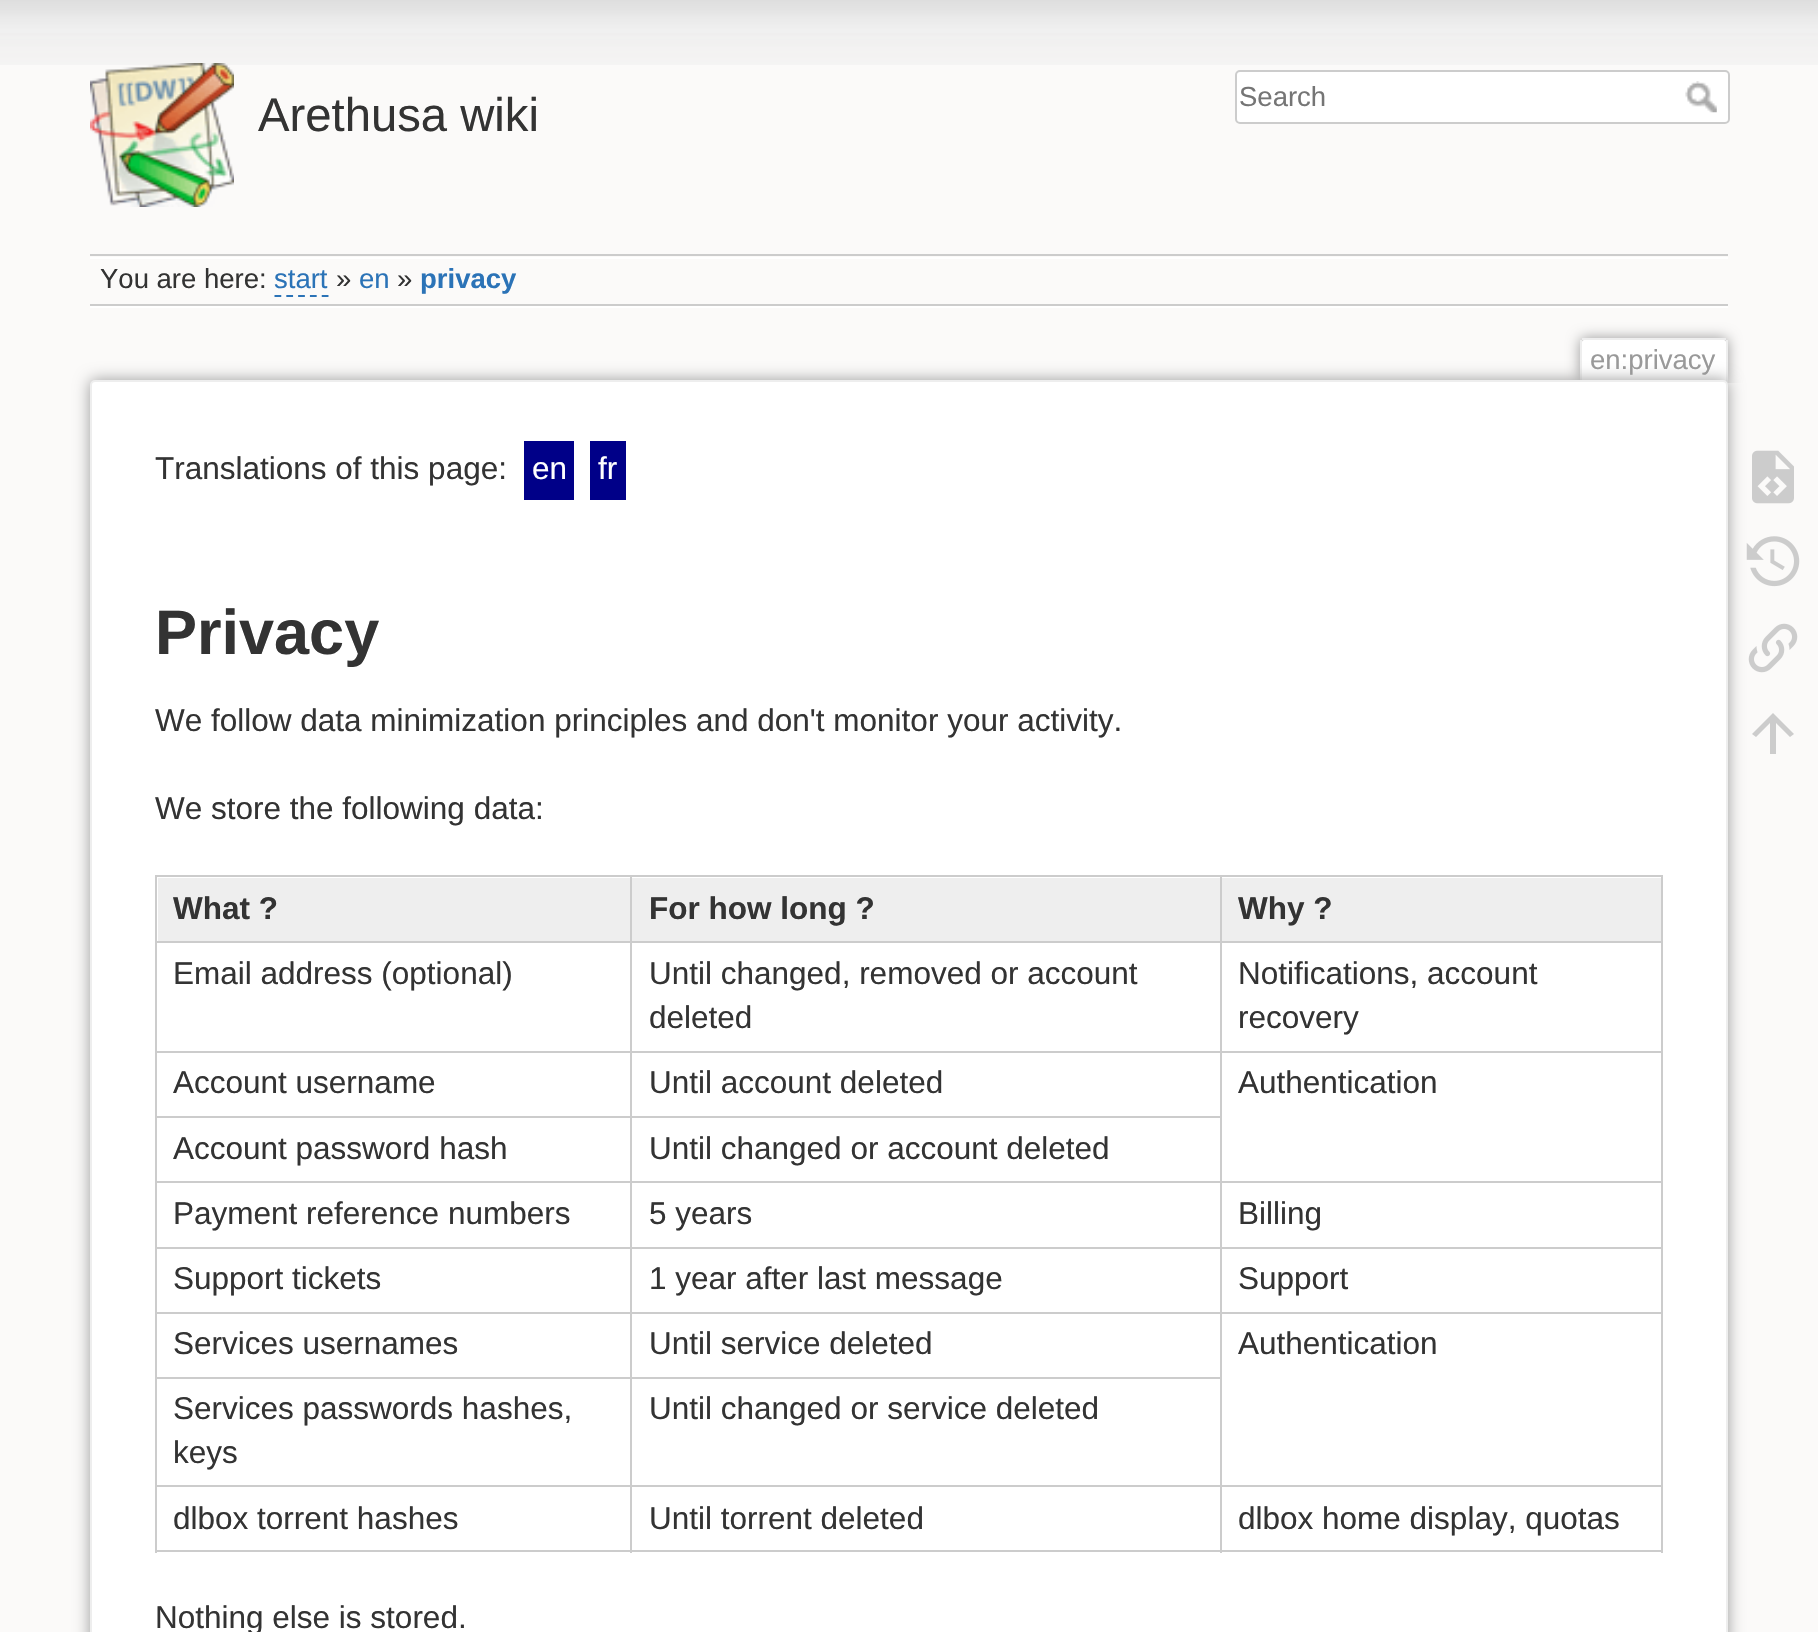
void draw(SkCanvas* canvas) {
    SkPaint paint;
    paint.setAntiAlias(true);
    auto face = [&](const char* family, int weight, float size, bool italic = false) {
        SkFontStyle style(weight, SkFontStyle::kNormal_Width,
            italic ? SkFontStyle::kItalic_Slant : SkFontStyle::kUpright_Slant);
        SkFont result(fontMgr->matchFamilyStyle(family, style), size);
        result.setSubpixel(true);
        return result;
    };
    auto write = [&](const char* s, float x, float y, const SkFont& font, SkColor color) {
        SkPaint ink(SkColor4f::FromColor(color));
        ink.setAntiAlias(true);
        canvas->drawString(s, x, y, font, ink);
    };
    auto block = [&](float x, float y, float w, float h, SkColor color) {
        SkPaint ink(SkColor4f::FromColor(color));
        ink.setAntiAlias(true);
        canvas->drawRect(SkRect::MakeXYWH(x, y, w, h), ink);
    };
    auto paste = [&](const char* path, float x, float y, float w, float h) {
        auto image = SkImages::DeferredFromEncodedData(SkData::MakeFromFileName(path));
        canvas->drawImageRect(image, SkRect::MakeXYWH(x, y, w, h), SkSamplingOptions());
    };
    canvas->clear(SkColorSetRGB(251, 250, 249));
    paste("pic1.png", 0, 0, 1818, 65);
    paste("pic2.png", 90, 63, 144, 144);
    auto kFont1 = face("Liberation Sans", 400, 47.25f);
    write("Arethusa wiki", 258, 131, kFont1, SkColorSetRGB(51, 51, 51));
    paint.setColor(SK_ColorWHITE);
    canvas->drawRoundRect(SkRect::MakeXYWH(1236, 71, 493, 52), 4, 4, paint);
    paint.setStyle(SkPaint::kStroke_Style);
    paint.setStrokeWidth(2);
    paint.setColor(SkColorSetRGB(204, 204, 204));
    canvas->drawRoundRect(SkRect::MakeXYWH(1236, 71, 493, 52), 4, 4, paint);
    auto kFont2 = face("Liberation Sans", 400, 27.5f);
    write("Search", 1239, 106, kFont2, SkColorSetRGB(117, 117, 117));
    paste("pic3.png", 1685, 81, 32, 32);
    block(90, 254, 1638, 2, SkColorSetRGB(204, 204, 204));
    block(90, 306, 1638, 2, SK_ColorWHITE);
    block(90, 257, 1638, 2, SK_ColorWHITE);
    block(90, 304, 1638, 2, SkColorSetRGB(204, 204, 204));
    write("You are here:", 100, 288, kFont2, SkColorSetRGB(51, 51, 51));
    write("start", 274, 288, kFont2, SkColorSetRGB(43, 115, 183));
    paint.setStrokeWidth(2.2f);
    paint.setColor(SkColorSetRGB(43, 115, 183));
    paint.setPathEffect(SkDashPathEffect::Make({{6.75f, 5.06f}}, 0));
    canvas->drawPath(SkPathBuilder().moveTo(274.5f, 296).lineTo(328.5f, 296).detach(), paint);
    paint.setPathEffect(nullptr);
    write("»", 336, 288, kFont2, SkColorSetRGB(51, 51, 51));
    write("en", 359, 288, kFont2, SkColorSetRGB(43, 115, 183));
    write("»", 397, 288, kFont2, SkColorSetRGB(51, 51, 51));
    auto kFont3 = face("Liberation Sans", 700, 27.5f);
    write("privacy", 420, 288, kFont3, SkColorSetRGB(43, 115, 183));
    canvas->save();
    canvas->clipRect(SkRect::MakeXYWH(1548, 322, 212, 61));
    paint.setStyle(SkPaint::kFill_Style);
    paint.setColor(SkColorSetRGB(153, 153, 153));
    paint.setMaskFilter(SkMaskFilter::MakeBlur(kNormal_SkBlurStyle, 7));
    canvas->drawRoundRect(SkRect::MakeXYWH(1580, 338, 148, 45), 5, 5, paint);
    paint.setMaskFilter(nullptr);
    canvas->restore();
    paint.setColor(SK_ColorWHITE);
    canvas->drawPath(SkPathBuilder().moveTo(1584, 340).lineTo(1724, 340).cubicTo(1725, 340, 1726, 341, 1726, 342).lineTo(1726, 383).lineTo(1582, 383).lineTo(1582, 342).cubicTo(1582, 341, 1583, 340, 1584, 340).close().detach(), paint);
    block(1582, 338, 144, 2, SkColorSetRGB(238, 238, 238));
    block(1726, 340, 2, 43, SkColorSetRGB(238, 238, 238));
    block(1580, 340, 2, 43, SkColorSetRGB(238, 238, 238));
    write("en:privacy", 1590, 369, kFont2, SkColorSetRGB(153, 153, 153));
    paint.setColor(SkColorSetRGB(153, 153, 153));
    paint.setMaskFilter(SkMaskFilter::MakeBlur(kNormal_SkBlurStyle, 8));
    canvas->drawRoundRect(SkRect::MakeXYWH(90, 380, 1638, 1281), 5, 5, paint);
    paint.setMaskFilter(nullptr);
    paint.setColor(SK_ColorWHITE);
    canvas->drawRoundRect(SkRect::MakeXYWH(91, 381, 1636, 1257), 4, 4, paint);
    paint.setStyle(SkPaint::kStroke_Style);
    paint.setStrokeWidth(2);
    paint.setColor(SkColorSetRGB(238, 238, 238));
    canvas->drawRoundRect(SkRect::MakeXYWH(91, 381, 1636, 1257), 4, 4, paint);
    auto kFont4 = face("Liberation Sans", 400, 31.5f);
    write("Translations of this page:", 155, 479, kFont4, SkColorSetRGB(51, 51, 51));
    block(524, 441, 50, 59, SkColorSetRGB(0, 0, 136));
    write("en", 532, 479, kFont4, SK_ColorWHITE);
    block(590, 441, 36, 59, SkColorSetRGB(0, 0, 136));
    write("fr", 598, 479, kFont4, SK_ColorWHITE);
    auto kFont5 = face("Liberation Sans", 700, 63);
    write("Privacy", 155, 654, kFont5, SkColorSetRGB(51, 51, 51));
    write("We follow data minimization principles and don't monitor your activity.", 155, 731, kFont4, SkColorSetRGB(51, 51, 51));
    write("We store the following data:", 155, 819, kFont4, SkColorSetRGB(51, 51, 51));
    block(155, 875, 1508, 2, SkColorSetRGB(204, 204, 204));
    block(1661, 875, 2, 678, SkColorSetRGB(204, 204, 204));
    block(155, 1550, 1508, 2, SkColorSetRGB(204, 204, 204));
    block(155, 875, 2, 678, SkColorSetRGB(204, 204, 204));
    block(158, 878, 472, 63, SkColorSetRGB(238, 238, 238));
    auto kFont6 = face("Liberation Sans", 700, 31.5f);
    write("What ?", 173, 919, kFont6, SkColorSetRGB(51, 51, 51));
    block(632, 878, 588, 63, SkColorSetRGB(238, 238, 238));
    block(1220, 941, 443, 2, SkColorSetRGB(204, 204, 204));
    block(1220, 1051, 443, 2, SkColorSetRGB(204, 204, 204));
    block(630, 1116, 592, 2, SkColorSetRGB(204, 204, 204));
    block(1220, 1181, 443, 2, SkColorSetRGB(204, 204, 204));
    block(1220, 1247, 443, 2, SkColorSetRGB(204, 204, 204));
    block(1220, 1312, 443, 2, SkColorSetRGB(204, 204, 204));
    block(630, 1377, 592, 2, SkColorSetRGB(204, 204, 204));
    block(1220, 1485, 443, 2, SkColorSetRGB(204, 204, 204));
    block(1220, 1485, 2, 68, SkColorSetRGB(204, 204, 204));
    block(630, 1485, 592, 2, SkColorSetRGB(204, 204, 204));
    block(1220, 1312, 2, 175, SkColorSetRGB(204, 204, 204));
    block(630, 1312, 592, 2, SkColorSetRGB(204, 204, 204));
    block(1220, 1247, 2, 67, SkColorSetRGB(204, 204, 204));
    block(630, 1247, 592, 2, SkColorSetRGB(204, 204, 204));
    block(1220, 1181, 2, 68, SkColorSetRGB(204, 204, 204));
    block(630, 1181, 592, 2, SkColorSetRGB(204, 204, 204));
    block(1220, 1051, 2, 133, SkColorSetRGB(204, 204, 204));
    block(630, 1051, 592, 2, SkColorSetRGB(204, 204, 204));
    block(1220, 941, 2, 112, SkColorSetRGB(204, 204, 204));
    block(630, 941, 592, 2, SkColorSetRGB(204, 204, 204));
    block(630, 1485, 2, 68, SkColorSetRGB(204, 204, 204));
    block(155, 1485, 477, 2, SkColorSetRGB(204, 204, 204));
    block(630, 1377, 2, 110, SkColorSetRGB(204, 204, 204));
    block(155, 1377, 477, 2, SkColorSetRGB(204, 204, 204));
    block(630, 1312, 2, 67, SkColorSetRGB(204, 204, 204));
    block(155, 1312, 477, 2, SkColorSetRGB(204, 204, 204));
    block(630, 1247, 2, 67, SkColorSetRGB(204, 204, 204));
    block(155, 1247, 477, 2, SkColorSetRGB(204, 204, 204));
    block(630, 1181, 2, 68, SkColorSetRGB(204, 204, 204));
    block(155, 1181, 477, 2, SkColorSetRGB(204, 204, 204));
    block(630, 1116, 2, 68, SkColorSetRGB(204, 204, 204));
    block(155, 1116, 477, 2, SkColorSetRGB(204, 204, 204));
    block(630, 1051, 2, 67, SkColorSetRGB(204, 204, 204));
    block(155, 1051, 477, 2, SkColorSetRGB(204, 204, 204));
    block(630, 941, 2, 112, SkColorSetRGB(204, 204, 204));
    block(155, 941, 477, 2, SkColorSetRGB(204, 204, 204));
    block(630, 875, 2, 68, SkColorSetRGB(204, 204, 204));
    write("For how long ?", 649, 919, kFont6, SkColorSetRGB(51, 51, 51));
    block(1222, 878, 439, 63, SkColorSetRGB(238, 238, 238));
    block(1220, 875, 2, 68, SkColorSetRGB(204, 204, 204));
    write("Why ?", 1238, 919, kFont6, SkColorSetRGB(51, 51, 51));
    write("Email address (optional)", 173, 984, kFont4, SkColorSetRGB(51, 51, 51));
    write("Until changed, removed or account", 649, 984, kFont4, SkColorSetRGB(51, 51, 51));
    write("deleted", 649, 1028, kFont4, SkColorSetRGB(51, 51, 51));
    write("Notifications, account", 1238, 984, kFont4, SkColorSetRGB(51, 51, 51));
    write("recovery", 1238, 1028, kFont4, SkColorSetRGB(51, 51, 51));
    write("Account username", 173, 1093, kFont4, SkColorSetRGB(51, 51, 51));
    write("Until account deleted", 649, 1093, kFont4, SkColorSetRGB(51, 51, 51));
    write("Authentication", 1238, 1093, kFont4, SkColorSetRGB(51, 51, 51));
    write("Account password hash", 173, 1159, kFont4, SkColorSetRGB(51, 51, 51));
    write("Until changed or account deleted", 649, 1159, kFont4, SkColorSetRGB(51, 51, 51));
    write("Payment reference numbers", 173, 1224, kFont4, SkColorSetRGB(51, 51, 51));
    write("5 years", 649, 1224, kFont4, SkColorSetRGB(51, 51, 51));
    write("Billing", 1238, 1224, kFont4, SkColorSetRGB(51, 51, 51));
    write("Support tickets", 173, 1289, kFont4, SkColorSetRGB(51, 51, 51));
    write("1 year after last message", 649, 1289, kFont4, SkColorSetRGB(51, 51, 51));
    write("Support", 1238, 1289, kFont4, SkColorSetRGB(51, 51, 51));
    write("Services usernames", 173, 1354, kFont4, SkColorSetRGB(51, 51, 51));
    write("Until service deleted", 649, 1354, kFont4, SkColorSetRGB(51, 51, 51));
    write("Authentication", 1238, 1354, kFont4, SkColorSetRGB(51, 51, 51));
    write("Services passwords hashes,", 173, 1419, kFont4, SkColorSetRGB(51, 51, 51));
    write("keys", 173, 1463, kFont4, SkColorSetRGB(51, 51, 51));
    write("Until changed or service deleted", 649, 1419, kFont4, SkColorSetRGB(51, 51, 51));
    write("dlbox torrent hashes", 173, 1529, kFont4, SkColorSetRGB(51, 51, 51));
    write("Until torrent deleted", 649, 1529, kFont4, SkColorSetRGB(51, 51, 51));
    write("dlbox home display, quotas", 1238, 1529, kFont4, SkColorSetRGB(51, 51, 51));
    write("Nothing else is stored.", 155, 1628, kFont4, SkColorSetRGB(51, 51, 51));
    paste("pic4.png", 1752, 450, 42, 54);
    paste("pic5.png", 1746, 536, 54, 51);
    paste("pic6.png", 1748, 623, 50, 50);
    paint.setStyle(SkPaint::kFill_Style);
    paint.setColor(SkColorSetRGB(204, 204, 204));
    canvas->drawPath(SkPathBuilder().moveTo(1776, 754).lineTo(1770, 754).lineTo(1770, 723).lineTo(1756, 737).lineTo(1752, 734).lineTo(1773, 713).lineTo(1794, 734).lineTo(1790, 737).lineTo(1776, 723).close().detach(), paint);
}
